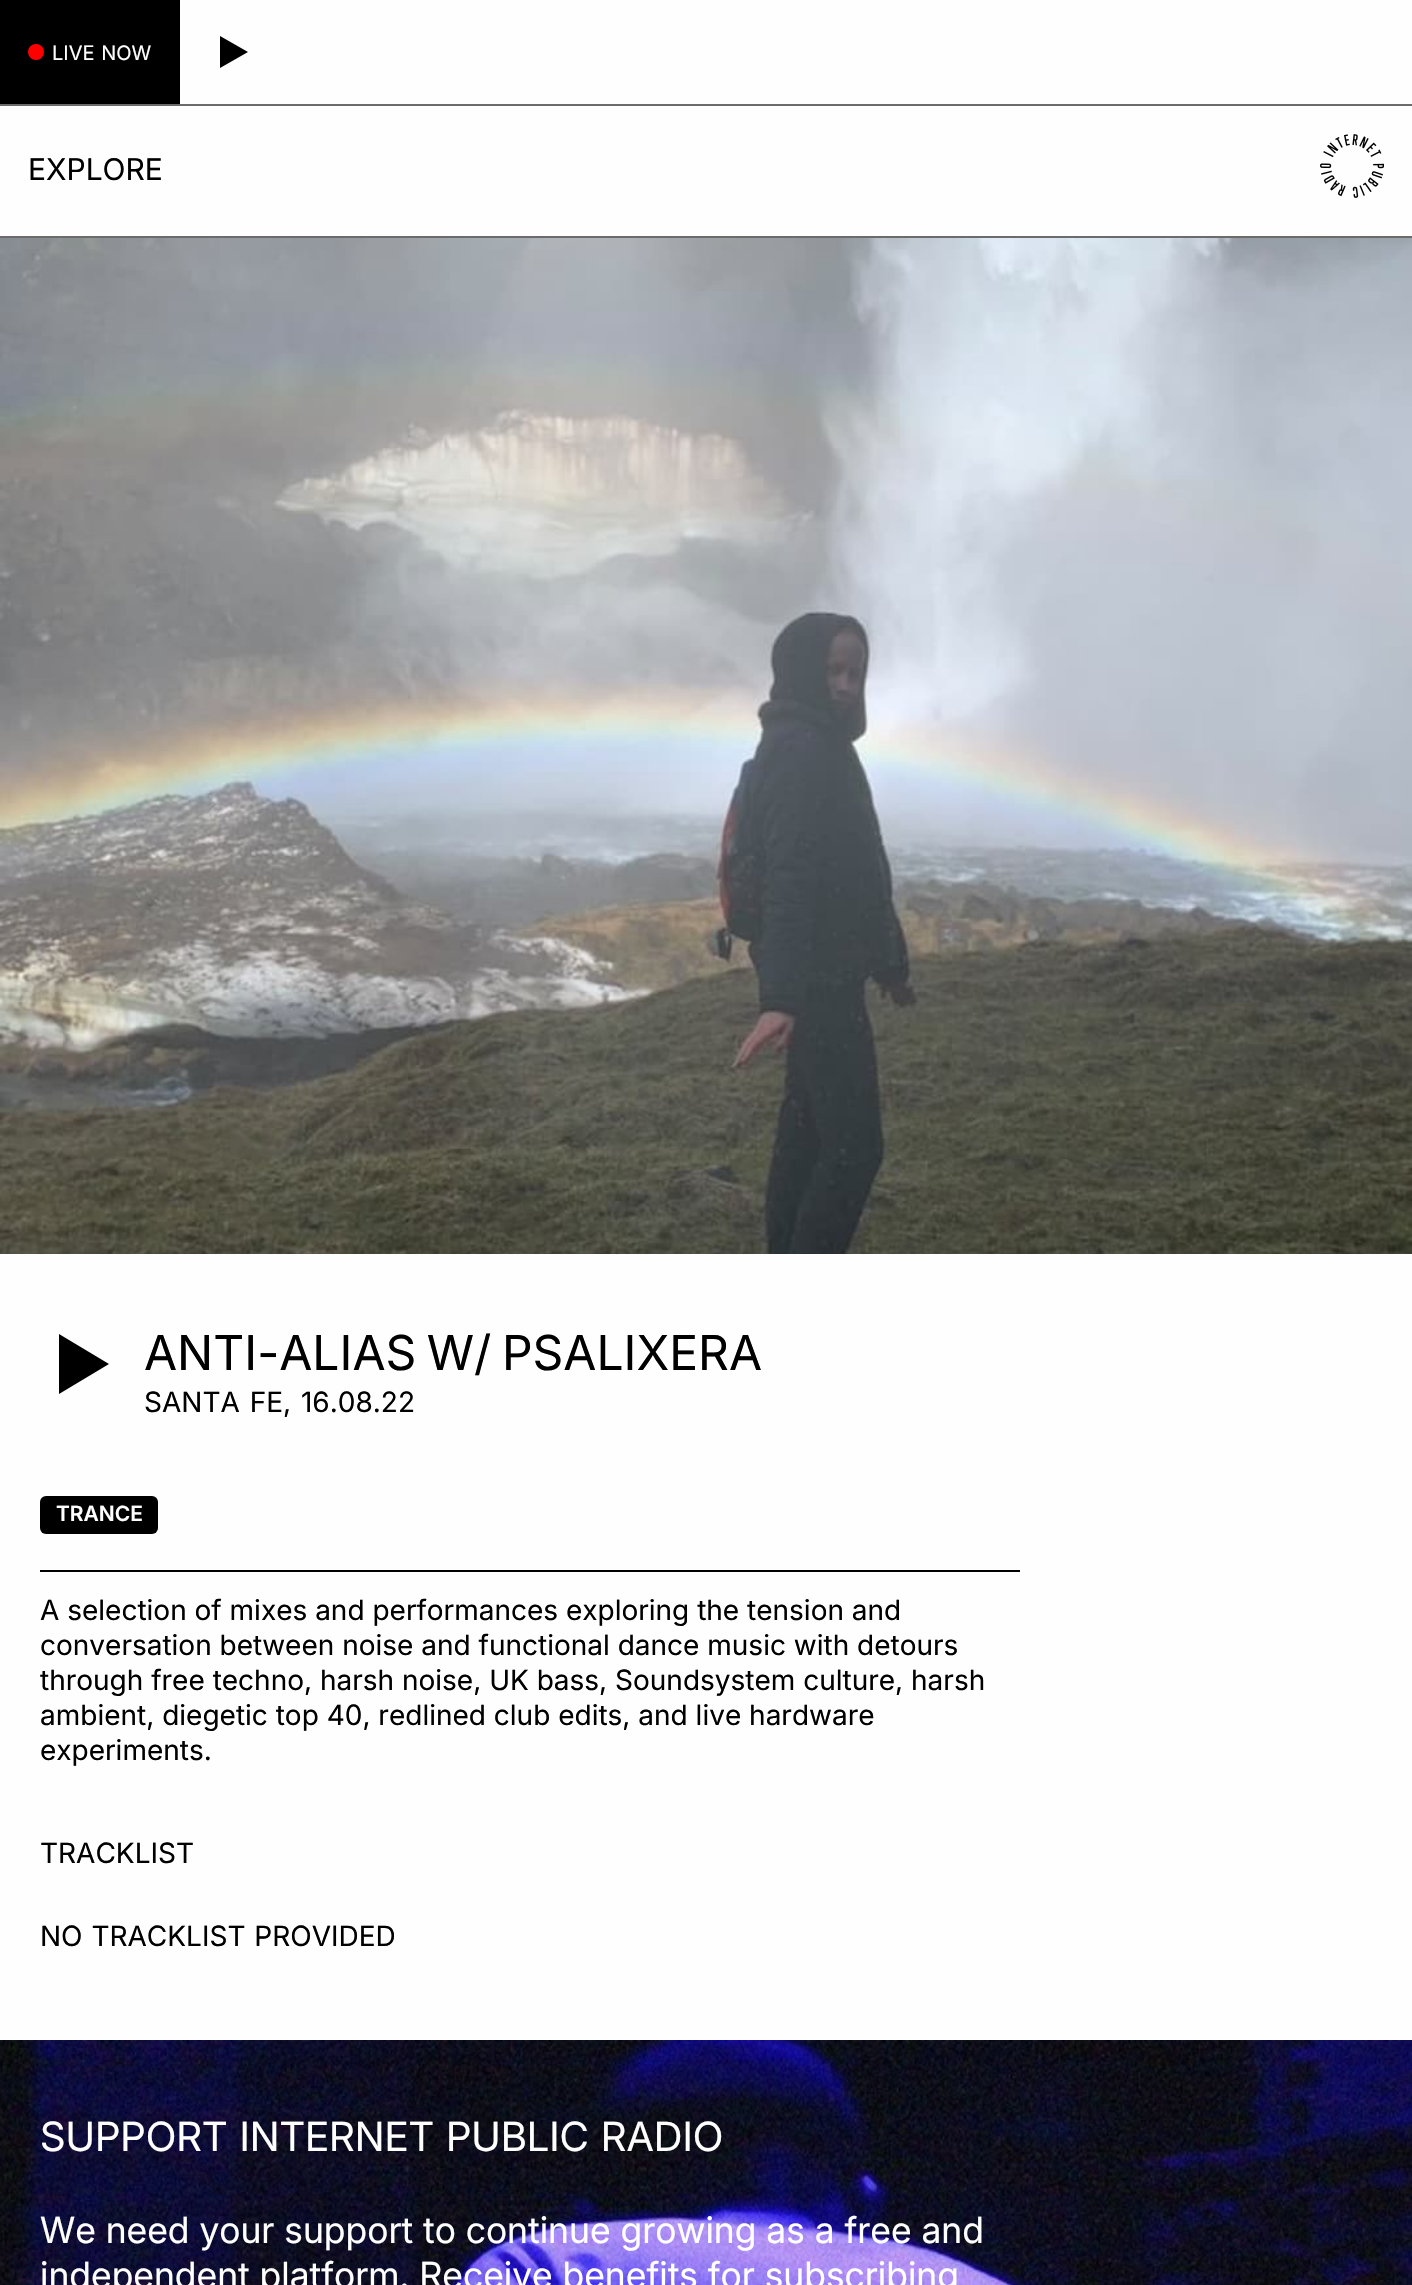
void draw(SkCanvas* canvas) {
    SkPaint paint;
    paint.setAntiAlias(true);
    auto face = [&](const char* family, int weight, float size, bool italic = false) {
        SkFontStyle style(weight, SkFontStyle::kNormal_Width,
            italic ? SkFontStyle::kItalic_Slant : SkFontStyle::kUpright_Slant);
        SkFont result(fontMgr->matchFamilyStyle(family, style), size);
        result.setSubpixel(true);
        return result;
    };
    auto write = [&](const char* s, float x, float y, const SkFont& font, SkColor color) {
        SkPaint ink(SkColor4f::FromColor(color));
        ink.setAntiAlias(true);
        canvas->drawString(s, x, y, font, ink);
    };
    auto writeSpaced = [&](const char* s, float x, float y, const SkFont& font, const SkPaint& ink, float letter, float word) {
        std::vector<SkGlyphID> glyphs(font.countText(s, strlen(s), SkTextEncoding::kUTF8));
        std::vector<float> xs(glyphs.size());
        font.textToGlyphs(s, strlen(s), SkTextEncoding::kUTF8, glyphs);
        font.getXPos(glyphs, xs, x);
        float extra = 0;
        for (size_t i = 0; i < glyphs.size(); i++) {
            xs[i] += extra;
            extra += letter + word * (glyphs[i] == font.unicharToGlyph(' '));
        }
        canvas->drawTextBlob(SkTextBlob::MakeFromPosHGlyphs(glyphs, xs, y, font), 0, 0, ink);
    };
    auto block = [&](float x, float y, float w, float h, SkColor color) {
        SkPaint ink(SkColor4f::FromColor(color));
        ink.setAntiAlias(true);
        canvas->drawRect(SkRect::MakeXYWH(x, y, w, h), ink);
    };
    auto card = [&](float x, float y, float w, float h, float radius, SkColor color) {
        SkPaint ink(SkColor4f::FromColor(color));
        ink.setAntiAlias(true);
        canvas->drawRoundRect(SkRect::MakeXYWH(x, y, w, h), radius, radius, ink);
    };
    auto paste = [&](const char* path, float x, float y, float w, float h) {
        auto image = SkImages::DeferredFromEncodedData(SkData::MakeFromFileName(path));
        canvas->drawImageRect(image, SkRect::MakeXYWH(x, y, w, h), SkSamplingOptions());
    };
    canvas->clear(SkColorSetRGB(254, 254, 254));
    block(0, 0, 180, 104, SK_ColorBLACK);
    paint.setColor(SkColorSetRGB(255, 0, 0));
    canvas->drawCircle(36, 52, 8, paint);
    auto kFont1 = face("Inter", 400, 20);
    paint.setColor(SK_ColorWHITE);
    writeSpaced("LIVE NOW", 52, 60, kFont1, paint, 0, 1);
    paint.setColor(SK_ColorBLACK);
    canvas->drawPath(SkPathBuilder().moveTo(220, 36).lineTo(248, 52).lineTo(220, 68).close().detach(), paint);
    block(0, 104, 1412, 2, SkColorSetRGB(107, 107, 107));
    block(0, 236, 1412, 2, SkColorSetRGB(107, 107, 107));
    auto kFont2 = face("Inter", 400, 30);
    write("EXPLORE", 28, 180, kFont2, SK_ColorBLACK);
    paste("pic1.png", 1320, 134, 64, 64);
    paste("pic2.png", 0, 238, 1412, 1016);
    canvas->drawPath(SkPathBuilder().moveTo(59, 1334).lineTo(59, 1394).lineTo(109, 1364).close().detach(), paint);
    auto kFont3 = face("Inter", 400, 48);
    writeSpaced("ANTI-ALIAS W/ PSALIXERA", 144, 1370, kFont3, paint, 0, -3);
    auto kFont4 = face("Inter", 400, 28);
    writeSpaced("SANTA FE, 16.08.22", 144, 1412, kFont4, paint, 0, 2);
    card(40, 1496, 118, 38, 6, SK_ColorBLACK);
    auto kFont5 = face("Inter", 600, 21);
    write("TRANCE", 56, 1521, kFont5, SK_ColorWHITE);
    block(40, 1570, 980, 2, SK_ColorBLACK);
    write("A selection of mixes and performances exploring the tension and", 40, 1620, kFont4, SK_ColorBLACK);
    write("conversation between noise and functional dance music with detours", 40, 1655, kFont4, SK_ColorBLACK);
    write("through free techno, harsh noise, UK bass, Soundsystem culture, harsh", 40, 1690, kFont4, SK_ColorBLACK);
    write("ambient, diegetic top 40, redlined club edits, and live hardware", 40, 1725, kFont4, SK_ColorBLACK);
    write("experiments.", 40, 1760, kFont4, SK_ColorBLACK);
    write("TRACKLIST", 40, 1863, kFont4, SK_ColorBLACK);
    writeSpaced("NO TRACKLIST PROVIDED", 40, 1946, kFont4, paint, 0, 1);
    paste("pic3.png", 0, 2040, 1412, 245);
    auto kFont6 = face("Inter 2", 400, 40.3f);
    paint.setColor(SK_ColorWHITE);
    writeSpaced("SUPPORT INTERNET PUBLIC RADIO", 40, 2151, kFont6, paint, 0, 1);
    auto kFont7 = face("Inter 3", 400, 36);
    write("We need your support to continue growing as a free and", 40, 2243, kFont7, SK_ColorWHITE);
    write("independent platform. Receive benefits for subscribing", 40, 2288, kFont7, SK_ColorWHITE);
}
